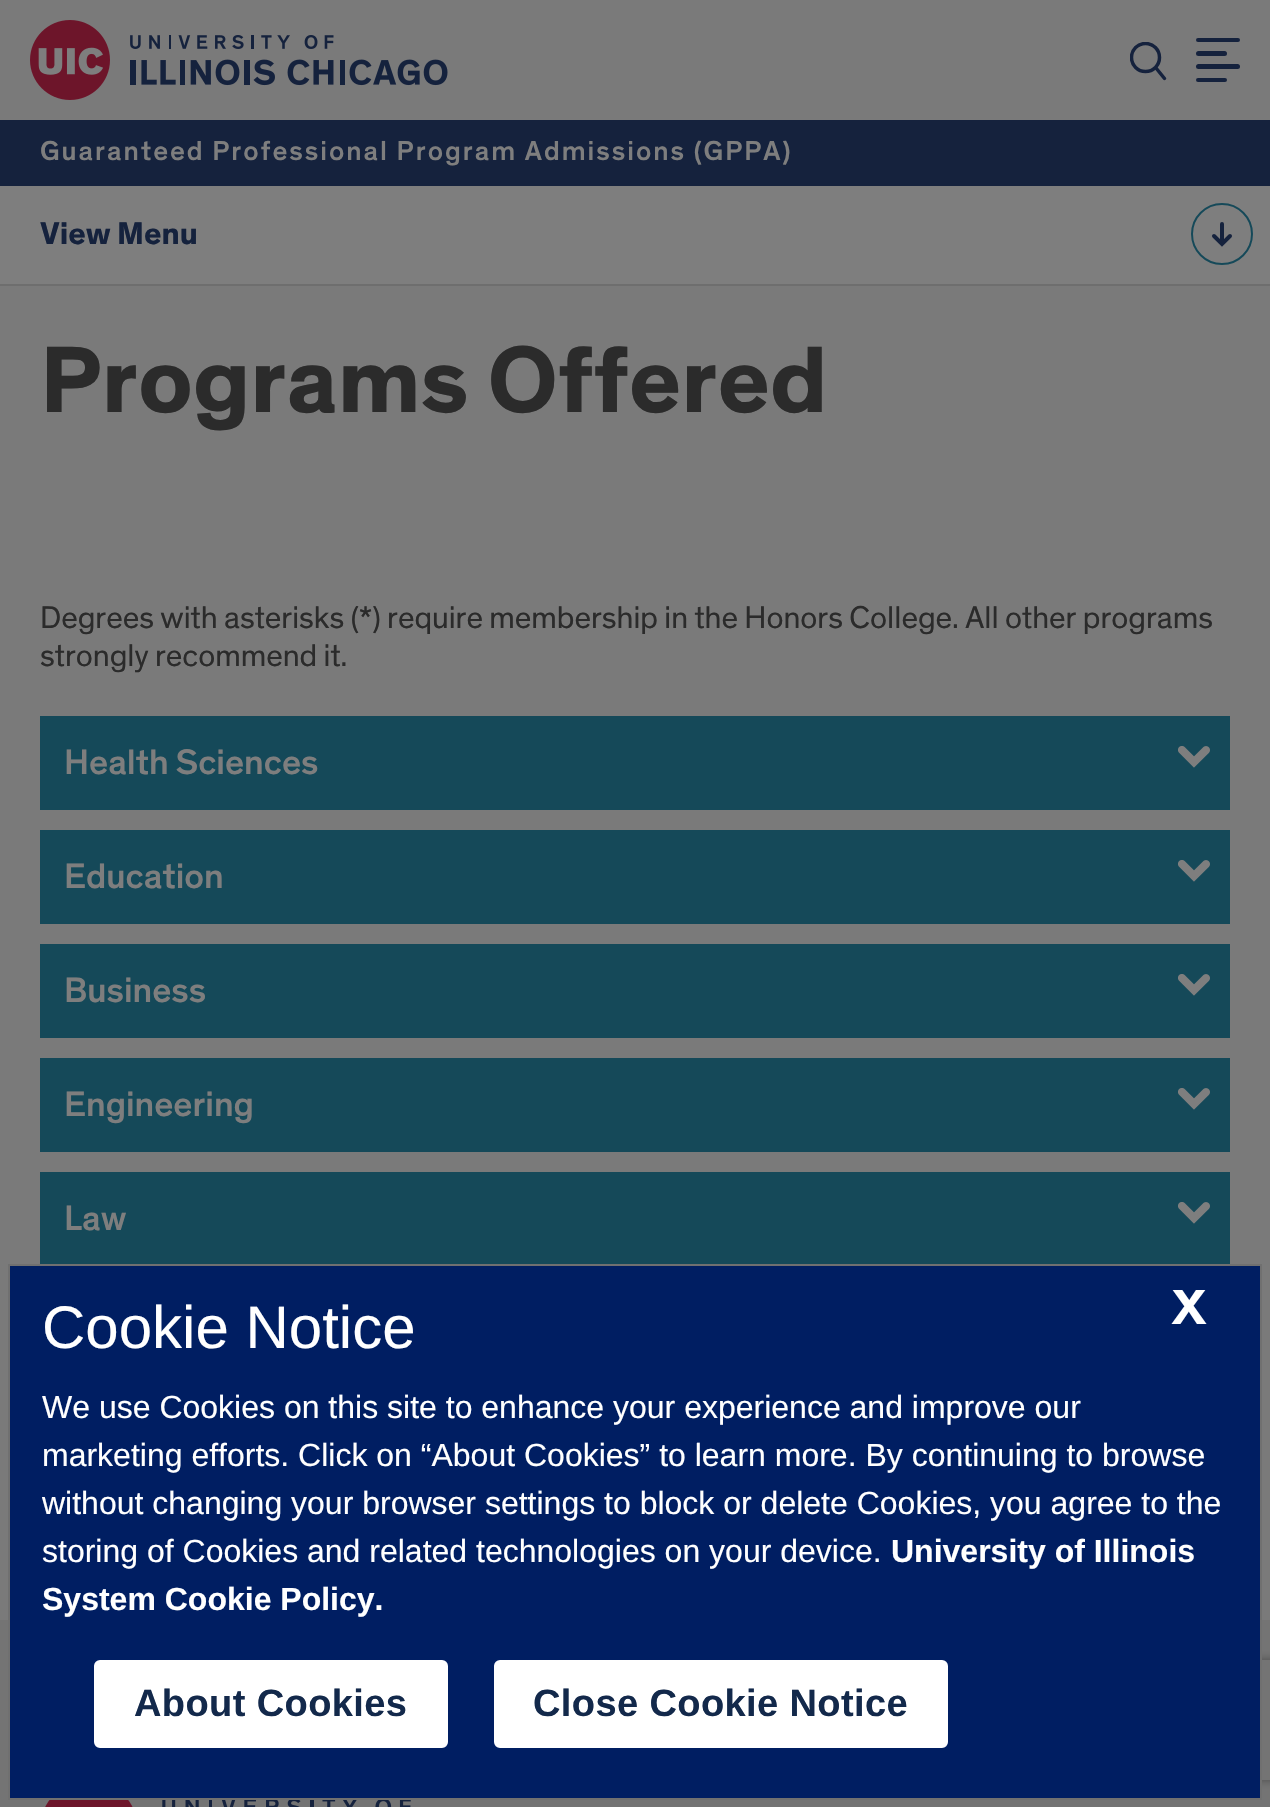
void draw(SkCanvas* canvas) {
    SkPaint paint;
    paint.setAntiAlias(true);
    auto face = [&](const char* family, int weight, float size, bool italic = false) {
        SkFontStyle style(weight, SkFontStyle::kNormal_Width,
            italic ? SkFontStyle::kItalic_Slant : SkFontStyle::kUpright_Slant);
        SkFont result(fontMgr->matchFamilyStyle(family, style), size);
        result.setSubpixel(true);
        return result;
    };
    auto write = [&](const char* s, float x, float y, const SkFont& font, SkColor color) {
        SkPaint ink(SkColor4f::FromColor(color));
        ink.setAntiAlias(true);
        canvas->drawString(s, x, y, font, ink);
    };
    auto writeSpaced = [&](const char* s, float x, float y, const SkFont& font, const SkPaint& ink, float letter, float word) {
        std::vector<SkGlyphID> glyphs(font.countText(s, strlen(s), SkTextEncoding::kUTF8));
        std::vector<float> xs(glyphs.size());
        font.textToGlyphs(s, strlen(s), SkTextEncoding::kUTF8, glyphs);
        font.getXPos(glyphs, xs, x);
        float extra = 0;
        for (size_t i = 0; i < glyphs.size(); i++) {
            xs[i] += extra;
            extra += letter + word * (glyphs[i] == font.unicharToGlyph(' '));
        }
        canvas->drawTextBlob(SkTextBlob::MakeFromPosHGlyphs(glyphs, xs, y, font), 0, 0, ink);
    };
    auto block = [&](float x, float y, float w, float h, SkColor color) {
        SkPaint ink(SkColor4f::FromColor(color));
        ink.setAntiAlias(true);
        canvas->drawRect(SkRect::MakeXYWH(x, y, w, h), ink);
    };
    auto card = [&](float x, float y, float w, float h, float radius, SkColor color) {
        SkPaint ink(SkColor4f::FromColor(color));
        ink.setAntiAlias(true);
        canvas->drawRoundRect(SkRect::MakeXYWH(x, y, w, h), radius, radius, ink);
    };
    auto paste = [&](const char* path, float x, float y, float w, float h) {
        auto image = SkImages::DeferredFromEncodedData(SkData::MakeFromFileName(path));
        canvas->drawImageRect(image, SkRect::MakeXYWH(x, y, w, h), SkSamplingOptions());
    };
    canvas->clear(SkColorSetRGB(122, 122, 122));
    paste("pic1.png", 30, 20, 418, 80);
    canvas->save();
    canvas->clipRect(SkRect::MakeXYWH(1130, 42, 38, 38));
    paint.setStyle(SkPaint::kStroke_Style);
    paint.setStrokeWidth(3.5f);
    paint.setColor(SkColorSetRGB(21, 34, 61));
    canvas->drawCircle(1145.5f, 57.5f, 14, paint);
    canvas->restore();
    paint.setStrokeCap(SkPaint::kRound_Cap);
    canvas->drawPath(SkPathBuilder().moveTo(1164.5f, 78.5f).lineTo(1156, 68).detach(), paint);
    card(1196, 38, 44, 4, 2, SkColorSetRGB(21, 34, 61));
    card(1196, 78, 31, 4, 2, SkColorSetRGB(21, 34, 61));
    card(1196, 64, 44, 5, 2.5f, SkColorSetRGB(21, 34, 61));
    card(1196, 51, 31, 5, 2.5f, SkColorSetRGB(21, 34, 61));
    block(0, 120, 1270, 66, SkColorSetRGB(21, 34, 61));
    auto kFont1 = face("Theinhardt", 500, 28);
    paint.setStyle(SkPaint::kFill_Style);
    paint.setColor(SkColorSetRGB(126, 126, 126));
    writeSpaced("Guaranteed Professional Program Admissions (GPPA)", 40, 160, kFont1, paint, 2, 0);
    block(0, 186, 1270, 98, SkColorSetRGB(126, 126, 126));
    block(0, 284, 1270, 2, SkColorSetRGB(110, 110, 110));
    auto kFont2 = face("Theinhardt", 700, 32);
    write("View Menu", 40, 244, kFont2, SkColorSetRGB(21, 34, 61));
    paint.setStyle(SkPaint::kStroke_Style);
    paint.setStrokeWidth(2);
    paint.setStrokeCap(SkPaint::kButt_Cap);
    paint.setColor(SkColorSetRGB(21, 73, 89));
    canvas->drawCircle(1222, 234, 30, paint);
    paint.setStrokeWidth(4);
    paint.setStrokeCap(SkPaint::kRound_Cap);
    paint.setColor(SkColorSetRGB(21, 34, 61));
    canvas->drawPath(SkPathBuilder().moveTo(1214, 236).lineTo(1222, 244).lineTo(1230, 236).moveTo(1222, 242).lineTo(1222, 224).detach(), paint);
    auto kFont3 = face("Theinhardt", 700, 96);
    write("Programs Offered", 40, 412, kFont3, SkColorSetRGB(43, 43, 43));
    auto kFont4 = face("Theinhardt", 400, 32);
    write("Degrees with asterisks (*) require membership in the Honors College. All other programs", 40, 628, kFont4, SkColorSetRGB(43, 43, 43));
    write("strongly recommend it.", 40, 666, kFont4, SkColorSetRGB(43, 43, 43));
    block(40, 716, 1190, 94, SkColorSetRGB(21, 73, 89));
    auto kFont5 = face("Theinhardt", 500, 36);
    write("Health Sciences", 64, 774, kFont5, SkColorSetRGB(126, 126, 126));
    paste("pic2.png", 1178, 746, 32, 22);
    block(40, 830, 1190, 94, SkColorSetRGB(21, 73, 89));
    write("Education", 64, 888, kFont5, SkColorSetRGB(126, 126, 126));
    paste("pic2.png", 1178, 860, 32, 22);
    block(40, 944, 1190, 94, SkColorSetRGB(21, 73, 89));
    write("Business", 64, 1002, kFont5, SkColorSetRGB(126, 126, 126));
    paste("pic2.png", 1178, 974, 32, 22);
    block(40, 1058, 1190, 94, SkColorSetRGB(21, 73, 89));
    write("Engineering", 64, 1116, kFont5, SkColorSetRGB(126, 126, 126));
    paste("pic2.png", 1178, 1088, 32, 22);
    block(40, 1172, 1190, 92, SkColorSetRGB(21, 73, 89));
    write("Law", 64, 1230, kFont5, SkColorSetRGB(126, 126, 126));
    paste("pic2.png", 1178, 1202, 32, 22);
    block(0, 1620, 1270, 187, SkColorSetRGB(116, 116, 116));
    paste("pic3.png", 45, 1800, 366, 7);
    canvas->save();
    canvas->clipPath(SkPathBuilder(SkPathFillType::kEvenOdd).moveTo(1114, 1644).lineTo(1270, 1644).lineTo(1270, 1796).lineTo(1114, 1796).close().moveTo(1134, 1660).lineTo(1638, 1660).cubicTo(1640, 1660, 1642, 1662, 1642, 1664).lineTo(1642, 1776).cubicTo(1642, 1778, 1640, 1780, 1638, 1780).lineTo(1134, 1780).cubicTo(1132, 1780, 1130, 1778, 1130, 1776).lineTo(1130, 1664).cubicTo(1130, 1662, 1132, 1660, 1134, 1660).close().detach(), true);
    paint.setStyle(SkPaint::kFill_Style);
    paint.setColor(SkColorSetRGB(74, 74, 74));
    paint.setMaskFilter(SkMaskFilter::MakeBlur(kNormal_SkBlurStyle, 5));
    canvas->drawRoundRect(SkRect::MakeXYWH(1130, 1660, 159, 120), 4, 4, paint);
    paint.setMaskFilter(nullptr);
    canvas->restore();
    paint.setColor(SkColorSetRGB(0, 30, 98));
    canvas->drawRect(SkRect::MakeXYWH(9, 1265, 1252, 534), paint);
    paint.setStyle(SkPaint::kStroke_Style);
    paint.setStrokeWidth(2);
    paint.setStrokeCap(SkPaint::kButt_Cap);
    paint.setColor(SkColorSetRGB(112, 112, 112));
    canvas->drawRect(SkRect::MakeXYWH(9, 1265, 1252, 534), paint);
    auto kFont6 = face("Liberation Sans", 400, 60);
    write("Cookie Notice", 42, 1348, kFont6, SK_ColorWHITE);
    auto kFont7 = face("Theinhardt", 700, 50);
    write("X", 1172, 1324, kFont7, SK_ColorWHITE);
    auto kFont8 = face("Liberation Sans", 400, 32);
    write("We use Cookies on this site to enhance your experience and improve our", 42, 1418, kFont8, SK_ColorWHITE);
    write("marketing efforts. Click on “About Cookies” to learn more. By continuing to browse", 42, 1466, kFont8, SK_ColorWHITE);
    write("without changing your browser settings to block or delete Cookies, you agree to the", 42, 1514, kFont8, SK_ColorWHITE);
    write("storing of Cookies and related technologies on your device.", 42, 1562, kFont8, SK_ColorWHITE);
    auto kFont9 = face("Liberation Sans", 700, 32);
    write("University of Illinois", 891, 1562, kFont9, SK_ColorWHITE);
    write("System Cookie Policy.", 42, 1610, kFont9, SK_ColorWHITE);
    paint.setStyle(SkPaint::kFill_Style);
    paint.setColor(SK_ColorWHITE);
    canvas->drawRoundRect(SkRect::MakeXYWH(92, 1658, 358, 92), 8, 8, paint);
    paint.setStyle(SkPaint::kStroke_Style);
    paint.setStrokeWidth(4);
    paint.setColor(SkColorSetRGB(0, 30, 98));
    canvas->drawRoundRect(SkRect::MakeXYWH(92, 1658, 358, 92), 8, 8, paint);
    auto kFont10 = face("Liberation Sans", 700, 38);
    paint.setStyle(SkPaint::kFill_Style);
    paint.setColor(SkColorSetRGB(19, 41, 75));
    writeSpaced("About Cookies", 134, 1716, kFont10, paint, 0.4f, 0);
    paint.setColor(SK_ColorWHITE);
    canvas->drawRoundRect(SkRect::MakeXYWH(492, 1658, 458, 92), 8, 8, paint);
    paint.setStyle(SkPaint::kStroke_Style);
    paint.setColor(SkColorSetRGB(0, 30, 98));
    canvas->drawRoundRect(SkRect::MakeXYWH(492, 1658, 458, 92), 8, 8, paint);
    paint.setStyle(SkPaint::kFill_Style);
    paint.setColor(SkColorSetRGB(19, 41, 75));
    writeSpaced("Close Cookie Notice", 533, 1716, kFont10, paint, 0.4f, 0);
}
